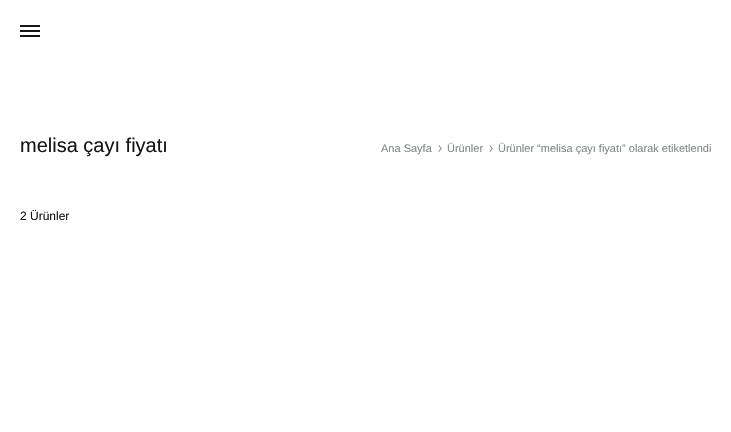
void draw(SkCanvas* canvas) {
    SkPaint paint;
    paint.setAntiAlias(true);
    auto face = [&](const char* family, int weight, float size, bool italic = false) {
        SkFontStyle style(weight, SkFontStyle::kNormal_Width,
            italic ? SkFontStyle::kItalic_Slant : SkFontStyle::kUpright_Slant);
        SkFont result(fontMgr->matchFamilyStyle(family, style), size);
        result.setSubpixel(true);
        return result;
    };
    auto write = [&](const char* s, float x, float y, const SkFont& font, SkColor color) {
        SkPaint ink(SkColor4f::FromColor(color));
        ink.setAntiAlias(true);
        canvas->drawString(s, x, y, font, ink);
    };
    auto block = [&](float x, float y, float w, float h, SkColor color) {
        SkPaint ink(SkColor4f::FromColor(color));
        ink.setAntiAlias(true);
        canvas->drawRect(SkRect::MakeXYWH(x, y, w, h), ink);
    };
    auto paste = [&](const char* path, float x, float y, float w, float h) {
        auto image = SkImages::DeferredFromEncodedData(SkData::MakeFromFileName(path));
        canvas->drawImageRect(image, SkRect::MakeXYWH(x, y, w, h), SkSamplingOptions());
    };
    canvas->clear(SK_ColorWHITE);
    block(20, 30, 20, 2, SkColorSetRGB(22, 22, 25));
    block(20, 25, 20, 2, SkColorSetRGB(22, 22, 25));
    block(20, 35, 20, 2, SkColorSetRGB(22, 22, 25));
    auto kFont1 = face("Liberation Sans", 400, 20);
    write("melisa çayı fiyatı", 20, 152, kFont1, SkColorSetRGB(22, 22, 25));
    auto kFont2 = face("Liberation Sans", 400, 11);
    write("Ana Sayfa", 381, 152, kFont2, SkColorSetRGB(131, 136, 137));
    paste("pic1.png", 438, 145, 4, 7);
    write("Ürünler", 447, 152, kFont2, SkColorSetRGB(131, 136, 137));
    paste("pic1.png", 489, 145, 4, 7);
    write("Ürünler “melisa çayı fiyatı” olarak etiketlendi", 498, 152, kFont2, SkColorSetRGB(131, 136, 137));
    auto kFont3 = face("Liberation Sans", 400, 12);
    write("2 Ürünler", 20, 220, kFont3, SkColorSetRGB(22, 22, 25));
}
